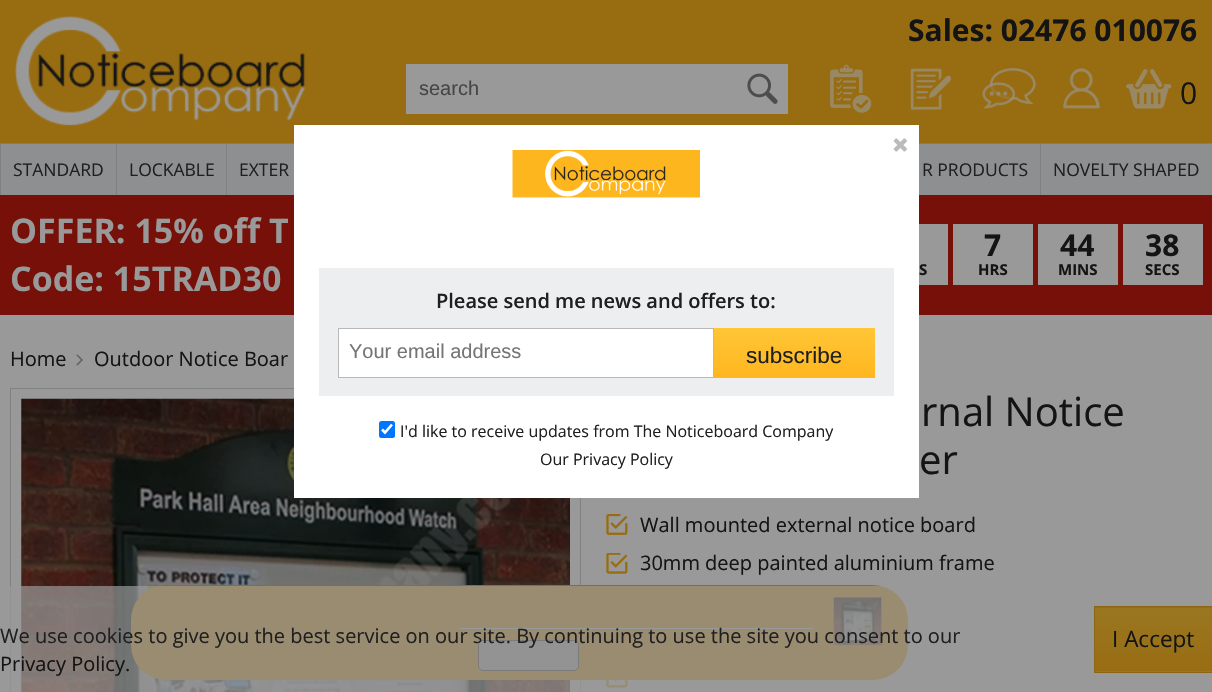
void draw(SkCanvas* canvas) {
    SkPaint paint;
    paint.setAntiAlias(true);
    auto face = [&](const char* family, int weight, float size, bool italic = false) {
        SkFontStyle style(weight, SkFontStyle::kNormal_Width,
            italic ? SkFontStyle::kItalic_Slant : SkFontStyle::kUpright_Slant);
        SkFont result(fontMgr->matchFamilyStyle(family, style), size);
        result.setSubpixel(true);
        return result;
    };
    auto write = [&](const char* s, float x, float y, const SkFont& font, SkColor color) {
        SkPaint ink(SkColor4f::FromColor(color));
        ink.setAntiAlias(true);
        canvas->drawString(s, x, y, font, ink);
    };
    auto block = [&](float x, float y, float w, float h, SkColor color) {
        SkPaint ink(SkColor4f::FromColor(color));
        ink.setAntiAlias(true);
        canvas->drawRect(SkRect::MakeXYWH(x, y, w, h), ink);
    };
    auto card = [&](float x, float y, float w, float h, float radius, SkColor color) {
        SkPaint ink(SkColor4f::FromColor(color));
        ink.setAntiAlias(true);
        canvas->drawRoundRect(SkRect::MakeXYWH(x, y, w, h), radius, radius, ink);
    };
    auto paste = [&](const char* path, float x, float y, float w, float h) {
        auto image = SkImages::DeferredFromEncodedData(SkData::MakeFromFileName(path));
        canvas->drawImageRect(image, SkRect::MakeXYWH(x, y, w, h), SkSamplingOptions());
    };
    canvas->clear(SkColorSetRGB(153, 153, 153));
    block(0, 0, 1212, 143, SkColorSetRGB(152, 109, 18));
    paste("pic1.png", 15, 16, 291, 110);
    auto kFont1 = face("Open Sans", 700, 30);
    write("Sales: 02476 010076", 908, 41, kFont1, SkColorSetRGB(20, 20, 20));
    block(406, 64, 382, 50, SkColorSetRGB(153, 153, 153));
    auto kFont2 = face("Liberation Sans", 400, 20);
    write("search", 419, 95, kFont2, SkColorSetRGB(70, 70, 70));
    paste("pic2.png", 747, 73, 31, 31);
    paste("pic3.png", 830, 64, 42, 49);
    paste("pic4.png", 910, 68, 41, 42);
    paste("pic5.png", 982, 68, 54, 41);
    paste("pic6.png", 1063, 68, 37, 41);
    paste("pic7.png", 1126, 69, 46, 40);
    auto kFont3 = face("Open Sans", 400, 30);
    write("0", 1180, 104, kFont3, SkColorSetRGB(20, 20, 20));
    block(1, 144, 1210, 51, SkColorSetRGB(142, 143, 144));
    block(0, 143, 1212, 1, SkColorSetRGB(152, 122, 59));
    block(1211, 144, 1, 51, SkColorSetRGB(139, 139, 139));
    block(0, 144, 1, 51, SkColorSetRGB(129, 128, 128));
    auto kFont4 = face("Open Sans", 400, 17.5f);
    write("STANDARD", 13, 176, kFont4, SkColorSetRGB(31, 31, 31));
    block(116, 144, 1, 51, SkColorSetRGB(129, 128, 128));
    write("LOCKABLE", 129, 176, kFont4, SkColorSetRGB(31, 31, 31));
    block(226, 144, 1, 51, SkColorSetRGB(129, 128, 128));
    write("EXTER", 239, 176, kFont4, SkColorSetRGB(31, 31, 31));
    write("R PRODUCTS", 922, 176, kFont4, SkColorSetRGB(31, 31, 31));
    block(1040, 144, 1, 51, SkColorSetRGB(129, 128, 128));
    write("NOVELTY SHAPED", 1053, 176, kFont4, SkColorSetRGB(31, 31, 31));
    block(0, 195, 1212, 120, SkColorSetRGB(119, 16, 8));
    auto kFont5 = face("Open Sans", 700, 34);
    write("OFFER: 15% off T", 10, 243, kFont5, SkColorSetRGB(153, 153, 153));
    write("Code: 15TRAD30", 10, 291, kFont5, SkColorSetRGB(153, 153, 153));
    block(919, 224, 29, 61, SkColorSetRGB(153, 153, 153));
    auto kFont6 = face("Open Sans", 700, 15);
    write("S", 919, 275, kFont6, SkColorSetRGB(20, 20, 20));
    block(953, 224, 80, 61, SkColorSetRGB(153, 153, 153));
    write("7", 984, 256, kFont1, SkColorSetRGB(20, 20, 20));
    write("HRS", 978, 275, kFont6, SkColorSetRGB(20, 20, 20));
    block(1038, 224, 80, 61, SkColorSetRGB(153, 153, 153));
    write("44", 1060, 256, kFont1, SkColorSetRGB(20, 20, 20));
    write("MINS", 1058, 275, kFont6, SkColorSetRGB(20, 20, 20));
    block(1123, 224, 80, 61, SkColorSetRGB(153, 153, 153));
    write("38", 1145, 256, kFont1, SkColorSetRGB(20, 20, 20));
    write("SECS", 1145, 275, kFont6, SkColorSetRGB(20, 20, 20));
    paint.setStyle(SkPaint::kStroke_Style);
    paint.setStrokeWidth(1);
    paint.setColor(SkColorSetRGB(129, 129, 129));
    canvas->drawRect(SkRect::MakeXYWH(10.5f, 388.5f, 570, 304), paint);
    paste("pic11.png", 21, 398, 549, 294);
    block(294, 125, 625, 373, SK_ColorWHITE);
    paste("pic8.png", 893, 138, 14, 14);
    paste("pic9.png", 512, 150, 188, 48);
    block(319, 268, 575, 128, SkColorSetRGB(237, 238, 240));
    auto kFont7 = face("Open Sans", 600, 20);
    write("Please send me news and offers to:", 436, 308, kFont7, SkColorSetRGB(31, 31, 31));
    paint.setStyle(SkPaint::kFill_Style);
    paint.setColor(SK_ColorWHITE);
    canvas->drawRect(SkRect::MakeXYWH(338.5f, 328.5f, 375, 49), paint);
    paint.setStyle(SkPaint::kStroke_Style);
    paint.setColor(SkColorSetRGB(184, 184, 184));
    canvas->drawRect(SkRect::MakeXYWH(338.5f, 328.5f, 375, 49), paint);
    write("Your email address", 349, 358, kFont2, SkColorSetRGB(117, 117, 117));
    paint.setStyle(SkPaint::kFill_Style);
    {
        const SkColor colors[] = {SkColorSetRGB(255, 198, 54), SkColorSetRGB(255, 182, 31)};
        const float stops[] = {0, 1};
        const SkPoint ends[] = {{794, 328}, {794, 378}};
        paint.setShader(SkGradientShader::MakeLinear(ends, colors, stops, 2, SkTileMode::kClamp));
        paint.setAlpha(255);
    }
    canvas->drawRect(SkRect::MakeXYWH(714, 328, 161, 50), paint);
    auto kFont8 = face("Liberation Sans", 400, 22.5f);
    write("subscribe", 746, 363, kFont8, SkColorSetRGB(31, 31, 31));
    card(379, 421, 16, 17, 2.5f, SkColorSetRGB(0, 117, 255));
    paint.setStyle(SkPaint::kStroke_Style);
    paint.setStrokeWidth(2.6f);
    paint.setShader(nullptr);
    paint.setColor(SK_ColorWHITE);
    canvas->drawPath(SkPathBuilder().moveTo(382, 429.5f).lineTo(385, 432.5f).lineTo(392, 424.5f).detach(), paint);
    auto kFont9 = face("Open Sans", 400, 16);
    write("I'd like to receive updates from The Noticeboard Company", 400, 437, kFont9, SkColorSetRGB(31, 31, 31));
    write("Our Privacy Policy", 540, 465, kFont9, SkColorSetRGB(31, 31, 31));
    auto kFont10 = face("Open Sans", 400, 20);
    write("Home", 10, 366, kFont10, SkColorSetRGB(20, 20, 20));
    paste("pic10.png", 76, 354, 7, 12);
    write("Outdoor Notice Boar", 94, 366, kFont10, SkColorSetRGB(20, 20, 20));
    auto kFont11 = face("Open Sans", 400, 40);
    write("rnal Notice", 921, 426, kFont11, SkColorSetRGB(20, 20, 20));
    write("er", 919, 474, kFont11, SkColorSetRGB(20, 20, 20));
    paste("pic12.png", 606, 514, 22, 21);
    write("Wall mounted external notice board", 640, 532, kFont10, SkColorSetRGB(20, 20, 20));
    paste("pic13.png", 606, 553, 22, 21);
    write("30mm deep painted aluminium frame", 640, 570, kFont10, SkColorSetRGB(20, 20, 20));
    paste("pic14.png", 606, 680, 22, 8);
    card(131, 585, 777, 95, 35, SkColorSetRGB(152, 109, 18));
    block(460, 628, 353, 1, SkColorSetRGB(153, 153, 153));
    paste("pic15.png", 833, 597, 49, 49);
    paint.setStyle(SkPaint::kFill_Style);
    paint.setColor(SkColorSetRGB(133, 133, 133));
    canvas->drawRoundRect(SkRect::MakeXYWH(478.5f, 640.5f, 100, 30), 4.5f, 4.5f, paint);
    paint.setStyle(SkPaint::kStroke_Style);
    paint.setStrokeWidth(1);
    paint.setColor(SkColorSetRGB(51, 51, 51));
    canvas->drawRoundRect(SkRect::MakeXYWH(478.5f, 640.5f, 100, 30), 4.5f, 4.5f, paint);
    block(10, 586, 898, 106, SkColorSetARGB(179, 153, 153, 153));
    write("We use cookies to give you the best service on our site. By continuing to use the site you consent to our", 0, 643, kFont10, SkColorSetRGB(31, 31, 31));
    write("Privacy Policy.", 0, 671, kFont10, SkColorSetRGB(20, 20, 20));
    paint.setStyle(SkPaint::kFill_Style);
    {
        const SkColor colors[] = {SkColorSetRGB(153, 119, 32), SkColorSetRGB(153, 109, 19)};
        const float stops[] = {0, 1};
        const SkPoint ends[] = {{1153, 544}, {1153, 608}};
        paint.setShader(SkGradientShader::MakeLinear(ends, colors, stops, 2, SkTileMode::kClamp));
        paint.setAlpha(255);
    }
    canvas->drawRect(SkRect::MakeXYWH(1094, 607, 118, 1), paint);
    {
        const SkColor colors[] = {SkColorSetRGB(153, 119, 32), SkColorSetRGB(153, 109, 19)};
        const float stops[] = {0, 1};
        const SkPoint ends[] = {{1153, 608}, {1153, 671}};
        paint.setShader(SkGradientShader::MakeLinear(ends, colors, stops, 2, SkTileMode::kClamp));
        paint.setAlpha(255);
    }
    canvas->drawRect(SkRect::MakeXYWH(1095, 608, 117, 63), paint);
    {
        const SkColor colors[] = {SkColorSetRGB(153, 119, 32), SkColorSetRGB(153, 109, 19)};
        const float stops[] = {0, 1};
        const SkPoint ends[] = {{1153, 671}, {1153, 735}};
        paint.setShader(SkGradientShader::MakeLinear(ends, colors, stops, 2, SkTileMode::kClamp));
        paint.setAlpha(255);
    }
    canvas->drawRect(SkRect::MakeXYWH(1094, 671, 118, 1), paint);
    paint.setStyle(SkPaint::kStroke_Style);
    paint.setShader(nullptr);
    paint.setColor(SkColorSetRGB(142, 102, 19));
    canvas->drawRect(SkRect::MakeXYWH(1094.5f, 606.5f, 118, 66), paint);
    auto kFont12 = face("Open Sans", 400, 22.5f);
    write("I Accept", 1112, 647, kFont12, SkColorSetRGB(20, 20, 20));
}
